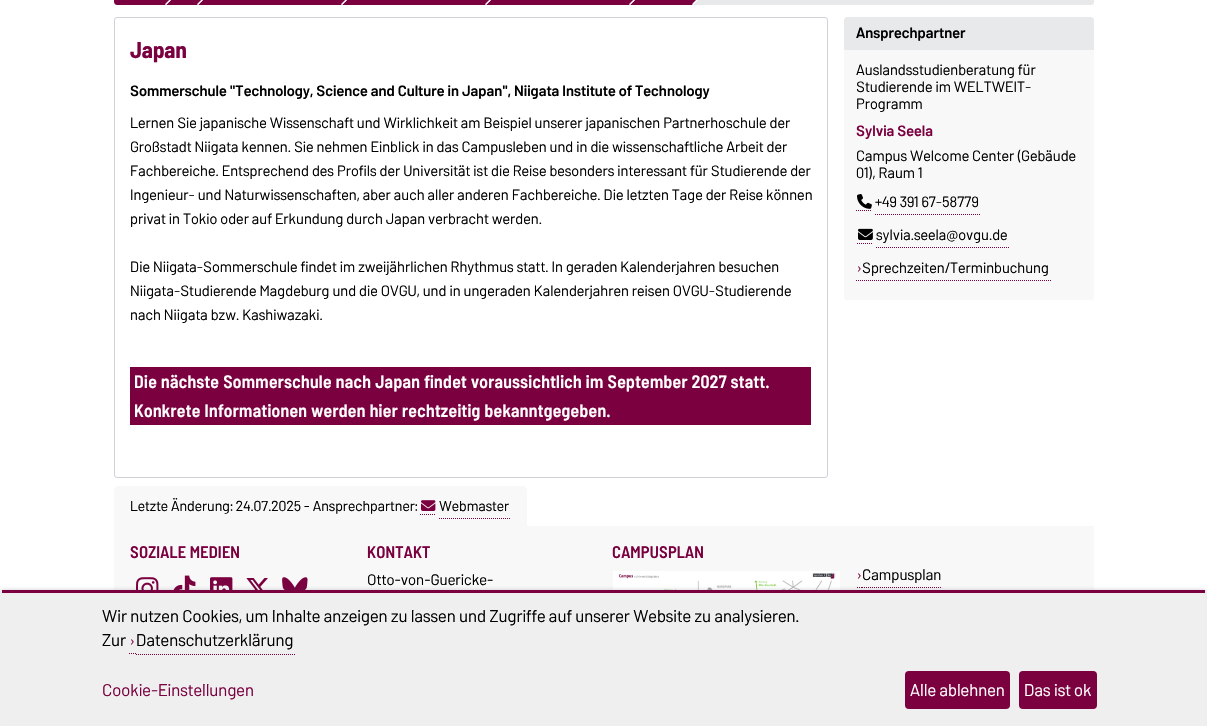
void draw(SkCanvas* canvas) {
    SkPaint paint;
    paint.setAntiAlias(true);
    auto face = [&](const char* family, int weight, float size, bool italic = false) {
        SkFontStyle style(weight, SkFontStyle::kNormal_Width,
            italic ? SkFontStyle::kItalic_Slant : SkFontStyle::kUpright_Slant);
        SkFont result(fontMgr->matchFamilyStyle(family, style), size);
        result.setSubpixel(true);
        return result;
    };
    auto write = [&](const char* s, float x, float y, const SkFont& font, SkColor color) {
        SkPaint ink(SkColor4f::FromColor(color));
        ink.setAntiAlias(true);
        canvas->drawString(s, x, y, font, ink);
    };
    auto writeSpaced = [&](const char* s, float x, float y, const SkFont& font, const SkPaint& ink, float letter, float word) {
        std::vector<SkGlyphID> glyphs(font.countText(s, strlen(s), SkTextEncoding::kUTF8));
        std::vector<float> xs(glyphs.size());
        font.textToGlyphs(s, strlen(s), SkTextEncoding::kUTF8, glyphs);
        font.getXPos(glyphs, xs, x);
        float extra = 0;
        for (size_t i = 0; i < glyphs.size(); i++) {
            xs[i] += extra;
            extra += letter + word * (glyphs[i] == font.unicharToGlyph(' '));
        }
        canvas->drawTextBlob(SkTextBlob::MakeFromPosHGlyphs(glyphs, xs, y, font), 0, 0, ink);
    };
    auto block = [&](float x, float y, float w, float h, SkColor color) {
        SkPaint ink(SkColor4f::FromColor(color));
        ink.setAntiAlias(true);
        canvas->drawRect(SkRect::MakeXYWH(x, y, w, h), ink);
    };
    auto card = [&](float x, float y, float w, float h, float radius, SkColor color) {
        SkPaint ink(SkColor4f::FromColor(color));
        ink.setAntiAlias(true);
        canvas->drawRoundRect(SkRect::MakeXYWH(x, y, w, h), radius, radius, ink);
    };
    auto paste = [&](const char* path, float x, float y, float w, float h) {
        auto image = SkImages::DeferredFromEncodedData(SkData::MakeFromFileName(path));
        canvas->drawImageRect(image, SkRect::MakeXYWH(x, y, w, h), SkSamplingOptions());
    };
    canvas->clear(SK_ColorWHITE);
    card(114, -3, 980, 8, 3, SkColorSetRGB(231, 233, 234));
    paint.setColor(SkColorSetRGB(122, 0, 63));
    canvas->drawPath(SkPathBuilder().moveTo(117, -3).lineTo(165, -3).lineTo(165, 5).lineTo(117, 5).cubicTo(115.5f, 5, 114, 3.5f, 114, 2).lineTo(114, 0).cubicTo(114, -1.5f, 115.5f, -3, 117, -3).close().detach(), paint);
    block(165, 0, 528, 5, SkColorSetRGB(122, 0, 63));
    paint.setColor(SkColorSetRGB(242, 230, 236));
    canvas->drawPath(SkPathBuilder().moveTo(167, -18).lineTo(166, -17).lineTo(175, -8).cubicTo(175.5f, -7.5f, 175.5f, -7, 175, -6).lineTo(165, 4).lineTo(166, 5).lineTo(176.5f, -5.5f).cubicTo(177.5f, -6.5f, 177.5f, -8, 176.5f, -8.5f).close().detach(), paint);
    paint.setColor(SkColorSetARGB(230, 255, 255, 255));
    canvas->drawPath(SkPathBuilder().moveTo(167, -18).lineTo(166, -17).lineTo(175, -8).cubicTo(175.5f, -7.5f, 175.5f, -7, 175, -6).lineTo(165, 4).lineTo(166, 5).lineTo(176.5f, -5.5f).cubicTo(177.5f, -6.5f, 177.5f, -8, 176.5f, -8.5f).close().detach(), paint);
    paint.setColor(SkColorSetRGB(122, 0, 63));
    canvas->drawPath(SkPathBuilder().moveTo(166, -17).lineTo(175, -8).cubicTo(175.5f, -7.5f, 175.5f, -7, 175, -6).lineTo(165, 4).cubicTo(159.5f, -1.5f, 159.5f, -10.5f, 165, -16).close().detach(), paint);
    paint.setColor(SkColorSetRGB(242, 230, 236));
    canvas->drawPath(SkPathBuilder().moveTo(199, -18).lineTo(198, -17).lineTo(207, -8).cubicTo(207.5f, -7.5f, 207.5f, -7, 207, -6).lineTo(197, 4).lineTo(198, 5).lineTo(208.5f, -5.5f).cubicTo(209.5f, -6.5f, 209.5f, -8, 208.5f, -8.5f).close().detach(), paint);
    paint.setColor(SkColorSetARGB(230, 255, 255, 255));
    canvas->drawPath(SkPathBuilder().moveTo(199, -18).lineTo(198, -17).lineTo(207, -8).cubicTo(207.5f, -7.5f, 207.5f, -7, 207, -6).lineTo(197, 4).lineTo(198, 5).lineTo(208.5f, -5.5f).cubicTo(209.5f, -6.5f, 209.5f, -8, 208.5f, -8.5f).close().detach(), paint);
    paint.setColor(SkColorSetRGB(122, 0, 63));
    canvas->drawPath(SkPathBuilder().moveTo(198, -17).lineTo(207, -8).cubicTo(207.5f, -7.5f, 207.5f, -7, 207, -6).lineTo(197, 4).cubicTo(191.5f, -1.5f, 191.5f, -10.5f, 197, -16).close().detach(), paint);
    paint.setColor(SkColorSetRGB(242, 230, 236));
    canvas->drawPath(SkPathBuilder().moveTo(343, -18).lineTo(342, -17).lineTo(351, -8).cubicTo(351.5f, -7.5f, 351.5f, -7, 351, -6).lineTo(341, 4).lineTo(342, 5).lineTo(352.5f, -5.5f).cubicTo(353.5f, -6.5f, 353.5f, -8, 352.5f, -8.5f).close().detach(), paint);
    paint.setColor(SkColorSetARGB(230, 255, 255, 255));
    canvas->drawPath(SkPathBuilder().moveTo(343, -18).lineTo(342, -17).lineTo(351, -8).cubicTo(351.5f, -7.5f, 351.5f, -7, 351, -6).lineTo(341, 4).lineTo(342, 5).lineTo(352.5f, -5.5f).cubicTo(353.5f, -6.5f, 353.5f, -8, 352.5f, -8.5f).close().detach(), paint);
    paint.setColor(SkColorSetRGB(122, 0, 63));
    canvas->drawPath(SkPathBuilder().moveTo(342, -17).lineTo(351, -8).cubicTo(351.5f, -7.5f, 351.5f, -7, 351, -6).lineTo(341, 4).cubicTo(335.5f, -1.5f, 335.5f, -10.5f, 341, -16).close().detach(), paint);
    paint.setColor(SkColorSetRGB(242, 230, 236));
    canvas->drawPath(SkPathBuilder().moveTo(487, -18).lineTo(486, -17).lineTo(495, -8).cubicTo(495.5f, -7.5f, 495.5f, -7, 495, -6).lineTo(485, 4).lineTo(486, 5).lineTo(496.5f, -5.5f).cubicTo(497.5f, -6.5f, 497.5f, -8, 496.5f, -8.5f).close().detach(), paint);
    paint.setColor(SkColorSetARGB(230, 255, 255, 255));
    canvas->drawPath(SkPathBuilder().moveTo(487, -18).lineTo(486, -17).lineTo(495, -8).cubicTo(495.5f, -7.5f, 495.5f, -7, 495, -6).lineTo(485, 4).lineTo(486, 5).lineTo(496.5f, -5.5f).cubicTo(497.5f, -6.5f, 497.5f, -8, 496.5f, -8.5f).close().detach(), paint);
    paint.setColor(SkColorSetRGB(122, 0, 63));
    canvas->drawPath(SkPathBuilder().moveTo(486, -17).lineTo(495, -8).cubicTo(495.5f, -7.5f, 495.5f, -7, 495, -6).lineTo(485, 4).cubicTo(479.5f, -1.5f, 479.5f, -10.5f, 485, -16).close().detach(), paint);
    paint.setColor(SkColorSetRGB(242, 230, 236));
    canvas->drawPath(SkPathBuilder().moveTo(631, -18).lineTo(630, -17).lineTo(639, -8).cubicTo(639.5f, -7.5f, 639.5f, -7, 639, -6).lineTo(629, 4).lineTo(630, 5).lineTo(640.5f, -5.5f).cubicTo(641.5f, -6.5f, 641.5f, -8, 640.5f, -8.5f).close().detach(), paint);
    paint.setColor(SkColorSetARGB(230, 255, 255, 255));
    canvas->drawPath(SkPathBuilder().moveTo(631, -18).lineTo(630, -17).lineTo(639, -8).cubicTo(639.5f, -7.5f, 639.5f, -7, 639, -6).lineTo(629, 4).lineTo(630, 5).lineTo(640.5f, -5.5f).cubicTo(641.5f, -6.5f, 641.5f, -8, 640.5f, -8.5f).close().detach(), paint);
    paint.setColor(SkColorSetRGB(122, 0, 63));
    canvas->drawPath(SkPathBuilder().moveTo(630, -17).lineTo(639, -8).cubicTo(639.5f, -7.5f, 639.5f, -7, 639, -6).lineTo(629, 4).cubicTo(623.5f, -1.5f, 623.5f, -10.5f, 629, -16).close().detach(), paint);
    paint.setColor(SkColorSetARGB(230, 255, 255, 255));
    canvas->drawPath(SkPathBuilder().moveTo(694, -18).lineTo(692, -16).lineTo(693, -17).lineTo(702, -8).cubicTo(703, -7.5f, 703, -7, 702, -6).lineTo(692, 4).lineTo(693, 5).lineTo(703.5f, -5.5f).cubicTo(704.5f, -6.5f, 704.5f, -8, 703.5f, -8.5f).close().detach(), paint);
    canvas->drawPath(SkPathBuilder().moveTo(694, -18).lineTo(692, -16).lineTo(693, -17).lineTo(702, -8).cubicTo(703, -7.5f, 703, -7, 702, -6).lineTo(692, 4).lineTo(693, 5).lineTo(703.5f, -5.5f).cubicTo(704.5f, -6.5f, 704.5f, -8, 703.5f, -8.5f).close().detach(), paint);
    paint.setColor(SkColorSetRGB(122, 0, 63));
    canvas->drawPath(SkPathBuilder().moveTo(693, -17).lineTo(702, -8).cubicTo(703, -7.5f, 703, -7, 702, -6).lineTo(692, 4).cubicTo(686.5f, -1.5f, 686.5f, -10.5f, 692, -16).close().detach(), paint);
    paint.setStyle(SkPaint::kStroke_Style);
    paint.setStrokeWidth(1);
    paint.setColor(SkColorSetRGB(207, 211, 214));
    canvas->drawRoundRect(SkRect::MakeXYWH(114.5f, 17.5f, 713, 460), 2.5f, 2.5f, paint);
    auto kFont1 = face("Barlow Semi Condensed", 700, 23);
    write("Japan", 130, 58, kFont1, SkColorSetRGB(122, 0, 63));
    auto kFont2 = face("Barlow", 600, 14.9f);
    write("Sommerschule \"Technology, Science and Culture in Japan\", Niigata Institute of Technology", 130, 96, kFont2, SK_ColorBLACK);
    auto kFont3 = face("Barlow", 400, 14.9f);
    write("Lernen Sie japanische Wissenschaft und Wirklichkeit am Beispiel unserer japanischen Partnerhoschule der", 130, 128, kFont3, SK_ColorBLACK);
    write("Großstadt Niigata kennen. Sie nehmen Einblick in das Campusleben und in die wissenschaftliche Arbeit der", 130, 152, kFont3, SK_ColorBLACK);
    write("Fachbereiche. Entsprechend des Profils der Universität ist die Reise besonders interessant für Studierende der", 130, 176, kFont3, SK_ColorBLACK);
    write("Ingenieur- und Naturwissenschaften, aber auch aller anderen Fachbereiche. Die letzten Tage der Reise können", 130, 200, kFont3, SK_ColorBLACK);
    write("privat in Tokio oder auf Erkundung durch Japan verbracht werden.", 130, 224, kFont3, SK_ColorBLACK);
    write("Die Niigata-Sommerschule findet im zweijährlichen Rhythmus statt. In geraden Kalenderjahren besuchen", 130, 272, kFont3, SK_ColorBLACK);
    write("Niigata-Studierende Magdeburg und die OVGU, und in ungeraden Kalenderjahren reisen OVGU-Studierende", 130, 296, kFont3, SK_ColorBLACK);
    write("nach Niigata bzw. Kashiwazaki.", 130, 320, kFont3, SK_ColorBLACK);
    block(130, 367, 681, 58, SkColorSetRGB(122, 0, 63));
    auto kFont4 = face("Barlow Semi Condensed", 600, 18);
    paint.setStyle(SkPaint::kFill_Style);
    paint.setColor(SK_ColorWHITE);
    writeSpaced("Die nächste Sommerschule nach Japan findet voraussichtlich im September 2027 statt.", 134, 388, kFont4, paint, 0.32f, 0);
    writeSpaced("Konkrete Informationen werden hier rechtzeitig bekanntgegeben.", 134, 417, kFont4, paint, 0.32f, 0);
    paint.setColor(SkColorSetRGB(231, 233, 234));
    canvas->drawPath(SkPathBuilder().moveTo(847, 17).lineTo(1091, 17).cubicTo(1092.5f, 17, 1094, 18.5f, 1094, 20).lineTo(1094, 50).lineTo(844, 50).lineTo(844, 20).cubicTo(844, 18.5f, 845.5f, 17, 847, 17).close().detach(), paint);
    write("Ansprechpartner", 856, 38, kFont2, SK_ColorBLACK);
    paint.setColor(SkColorSetRGB(248, 248, 248));
    canvas->drawPath(SkPathBuilder().moveTo(844, 50).lineTo(1094, 50).lineTo(1094, 297).cubicTo(1094, 298.5f, 1092.5f, 300, 1091, 300).lineTo(847, 300).cubicTo(845.5f, 300, 844, 298.5f, 844, 297).close().detach(), paint);
    write("Auslandsstudienberatung für", 856, 75, kFont3, SK_ColorBLACK);
    write("Studierende im WELTWEIT-", 856, 92, kFont3, SK_ColorBLACK);
    write("Programm", 856, 109, kFont3, SK_ColorBLACK);
    write("Sylvia Seela", 856, 136, kFont2, SkColorSetRGB(122, 0, 63));
    write("Campus Welcome Center (Gebäude", 856, 161, kFont3, SK_ColorBLACK);
    write("01), Raum 1", 856, 178, kFont3, SK_ColorBLACK);
    paint.setStyle(SkPaint::kStroke_Style);
    paint.setColor(SkColorSetRGB(122, 0, 63));
    paint.setPathEffect(SkDashPathEffect::Make({{1, 1}}, 0));
    canvas->drawPath(SkPathBuilder().moveTo(856, 210.5f).lineTo(871, 210.5f).detach(), paint);
    paint.setPathEffect(nullptr);
    paint.setPathEffect(SkDashPathEffect::Make({{1, 1}}, 0));
    canvas->drawPath(SkPathBuilder().moveTo(875, 214.5f).lineTo(981, 214.5f).detach(), paint);
    paint.setPathEffect(nullptr);
    paste("pic1.png", 857, 194, 15, 15);
    write("+49 391 67-58779", 875, 207, kFont3, SK_ColorBLACK);
    paint.setPathEffect(SkDashPathEffect::Make({{1, 1}}, 0));
    canvas->drawPath(SkPathBuilder().moveTo(857, 243.5f).lineTo(872, 243.5f).detach(), paint);
    paint.setPathEffect(nullptr);
    paint.setPathEffect(SkDashPathEffect::Make({{1, 1}}, 0));
    canvas->drawPath(SkPathBuilder().moveTo(876, 247.5f).lineTo(1010, 247.5f).detach(), paint);
    paint.setPathEffect(nullptr);
    paste("pic2.png", 858, 228, 15, 12);
    write("sylvia.seela@ovgu.de", 876, 240, kFont3, SK_ColorBLACK);
    auto kFont5 = face("Barlow", 400, 14.4f);
    write("›", 857, 273, kFont5, SkColorSetRGB(122, 0, 63));
    canvas->drawPath(SkPathBuilder().moveTo(856, 280.5f).lineTo(857, 280.5f).moveTo(858, 280.5f).lineTo(859, 280.5f).moveTo(860, 280.5f).lineTo(861, 280.5f).detach(), paint);
    write("Sprechzeiten/Terminbuchung", 862, 273, kFont3, SK_ColorBLACK);
    paint.setPathEffect(SkDashPathEffect::Make({{1, 1}}, 0));
    canvas->drawPath(SkPathBuilder().moveTo(862, 280.5f).lineTo(1051, 280.5f).detach(), paint);
    paint.setPathEffect(nullptr);
    paint.setStyle(SkPaint::kFill_Style);
    paint.setColor(SkColorSetRGB(248, 248, 248));
    canvas->drawPath(SkPathBuilder().moveTo(119, 486).lineTo(522, 486).cubicTo(525, 486, 527, 488, 527, 491).lineTo(527, 526).lineTo(114, 526).lineTo(114, 491).cubicTo(114, 488, 116, 486, 119, 486).close().detach(), paint);
    write("Letzte Änderung: 24.07.2025 - Ansprechpartner:", 130, 511, kFont5, SK_ColorBLACK);
    paint.setStyle(SkPaint::kStroke_Style);
    paint.setColor(SkColorSetRGB(122, 0, 63));
    paint.setPathEffect(SkDashPathEffect::Make({{1, 1}}, 0));
    canvas->drawPath(SkPathBuilder().moveTo(420, 514.5f).lineTo(435, 514.5f).detach(), paint);
    paint.setPathEffect(nullptr);
    paint.setPathEffect(SkDashPathEffect::Make({{1, 1}}, 0));
    canvas->drawPath(SkPathBuilder().moveTo(439, 518.5f).lineTo(511, 518.5f).detach(), paint);
    paint.setPathEffect(nullptr);
    paste("pic3.png", 421, 500, 15, 11);
    write("Webmaster", 439, 511, kFont5, SK_ColorBLACK);
    block(114, 526, 980, 64, SkColorSetRGB(248, 248, 248));
    auto kFont6 = face("Barlow Semi Condensed", 600, 16.75f);
    paint.setStyle(SkPaint::kFill_Style);
    writeSpaced("SOZIALE MEDIEN", 130, 558, kFont6, paint, 0.2f, 0);
    paste("pic4.png", 136, 577, 23, 13);
    paste("pic5.png", 173, 575, 23, 15);
    paste("pic6.png", 210, 577, 23, 13);
    paste("pic7.png", 246, 578, 22, 12);
    paste("pic8.png", 282, 577, 26, 13);
    writeSpaced("KONTAKT", 367, 558, kFont6, paint, 0.2f, 0);
    auto kFont7 = face("Barlow", 400, 15.25f);
    write("Otto-von-Guericke-", 367, 585, kFont7, SK_ColorBLACK);
    writeSpaced("CAMPUSPLAN", 612, 558, kFont6, paint, 0.2f, 0);
    paste("pic9.png", 613, 571, 227, 19);
    write("›", 857, 580, kFont5, SkColorSetRGB(122, 0, 63));
    paint.setStyle(SkPaint::kStroke_Style);
    canvas->drawPath(SkPathBuilder().moveTo(857, 587.5f).lineTo(858, 587.5f).moveTo(859, 587.5f).lineTo(860, 587.5f).moveTo(861, 587.5f).lineTo(862, 587.5f).detach(), paint);
    write("Campusplan", 862, 580, kFont7, SK_ColorBLACK);
    paint.setPathEffect(SkDashPathEffect::Make({{1, 1}}, 0));
    canvas->drawPath(SkPathBuilder().moveTo(862, 587.5f).lineTo(941, 587.5f).detach(), paint);
    paint.setPathEffect(nullptr);
    paint.setStyle(SkPaint::kFill_Style);
    paint.setColor(SkColorSetARGB(69, 67, 71, 85));
    paint.setMaskFilter(SkMaskFilter::MakeBlur(kNormal_SkBlurStyle, 2));
    canvas->drawRoundRect(SkRect::MakeXYWH(0, 590, 1207, 136), 4, 4, paint);
    paint.setMaskFilter(nullptr);
    card(0, 590, 1207, 136, 4, SkColorSetRGB(239, 239, 239));
    block(2, 590, 1203, 3, SkColorSetRGB(122, 0, 63));
    auto kFont8 = face("Barlow", 400, 17);
    write("Wir nutzen Cookies, um Inhalte anzeigen zu lassen und Zugriffe auf unserer Website zu analysieren.", 102, 622, kFont8, SK_ColorBLACK);
    write("Zur", 102, 646, kFont8, SK_ColorBLACK);
    write("›", 130, 646, kFont5, SkColorSetRGB(122, 0, 63));
    paint.setStyle(SkPaint::kStroke_Style);
    paint.setColor(SkColorSetRGB(122, 0, 63));
    canvas->drawPath(SkPathBuilder().moveTo(129, 653.5f).lineTo(130, 653.5f).moveTo(131, 653.5f).lineTo(132, 653.5f).moveTo(133, 653.5f).lineTo(134, 653.5f).moveTo(135, 653.5f).lineTo(136, 653.5f).detach(), paint);
    write("Datenschutzerklärung", 136, 646, kFont8, SK_ColorBLACK);
    paint.setPathEffect(SkDashPathEffect::Make({{1, 1}}, 0));
    canvas->drawPath(SkPathBuilder().moveTo(136, 654.5f).lineTo(296, 654.5f).detach(), paint);
    paint.setPathEffect(nullptr);
    write("Cookie-Einstellungen", 102, 696, kFont8, SkColorSetRGB(122, 0, 63));
    card(905, 671, 105, 38, 4, SkColorSetRGB(122, 0, 63));
    write("Alle ablehnen", 910, 696, kFont8, SK_ColorWHITE);
    card(1019, 671, 78, 38, 4, SkColorSetRGB(122, 0, 63));
    write("Das ist ok", 1024, 696, kFont8, SK_ColorWHITE);
}
